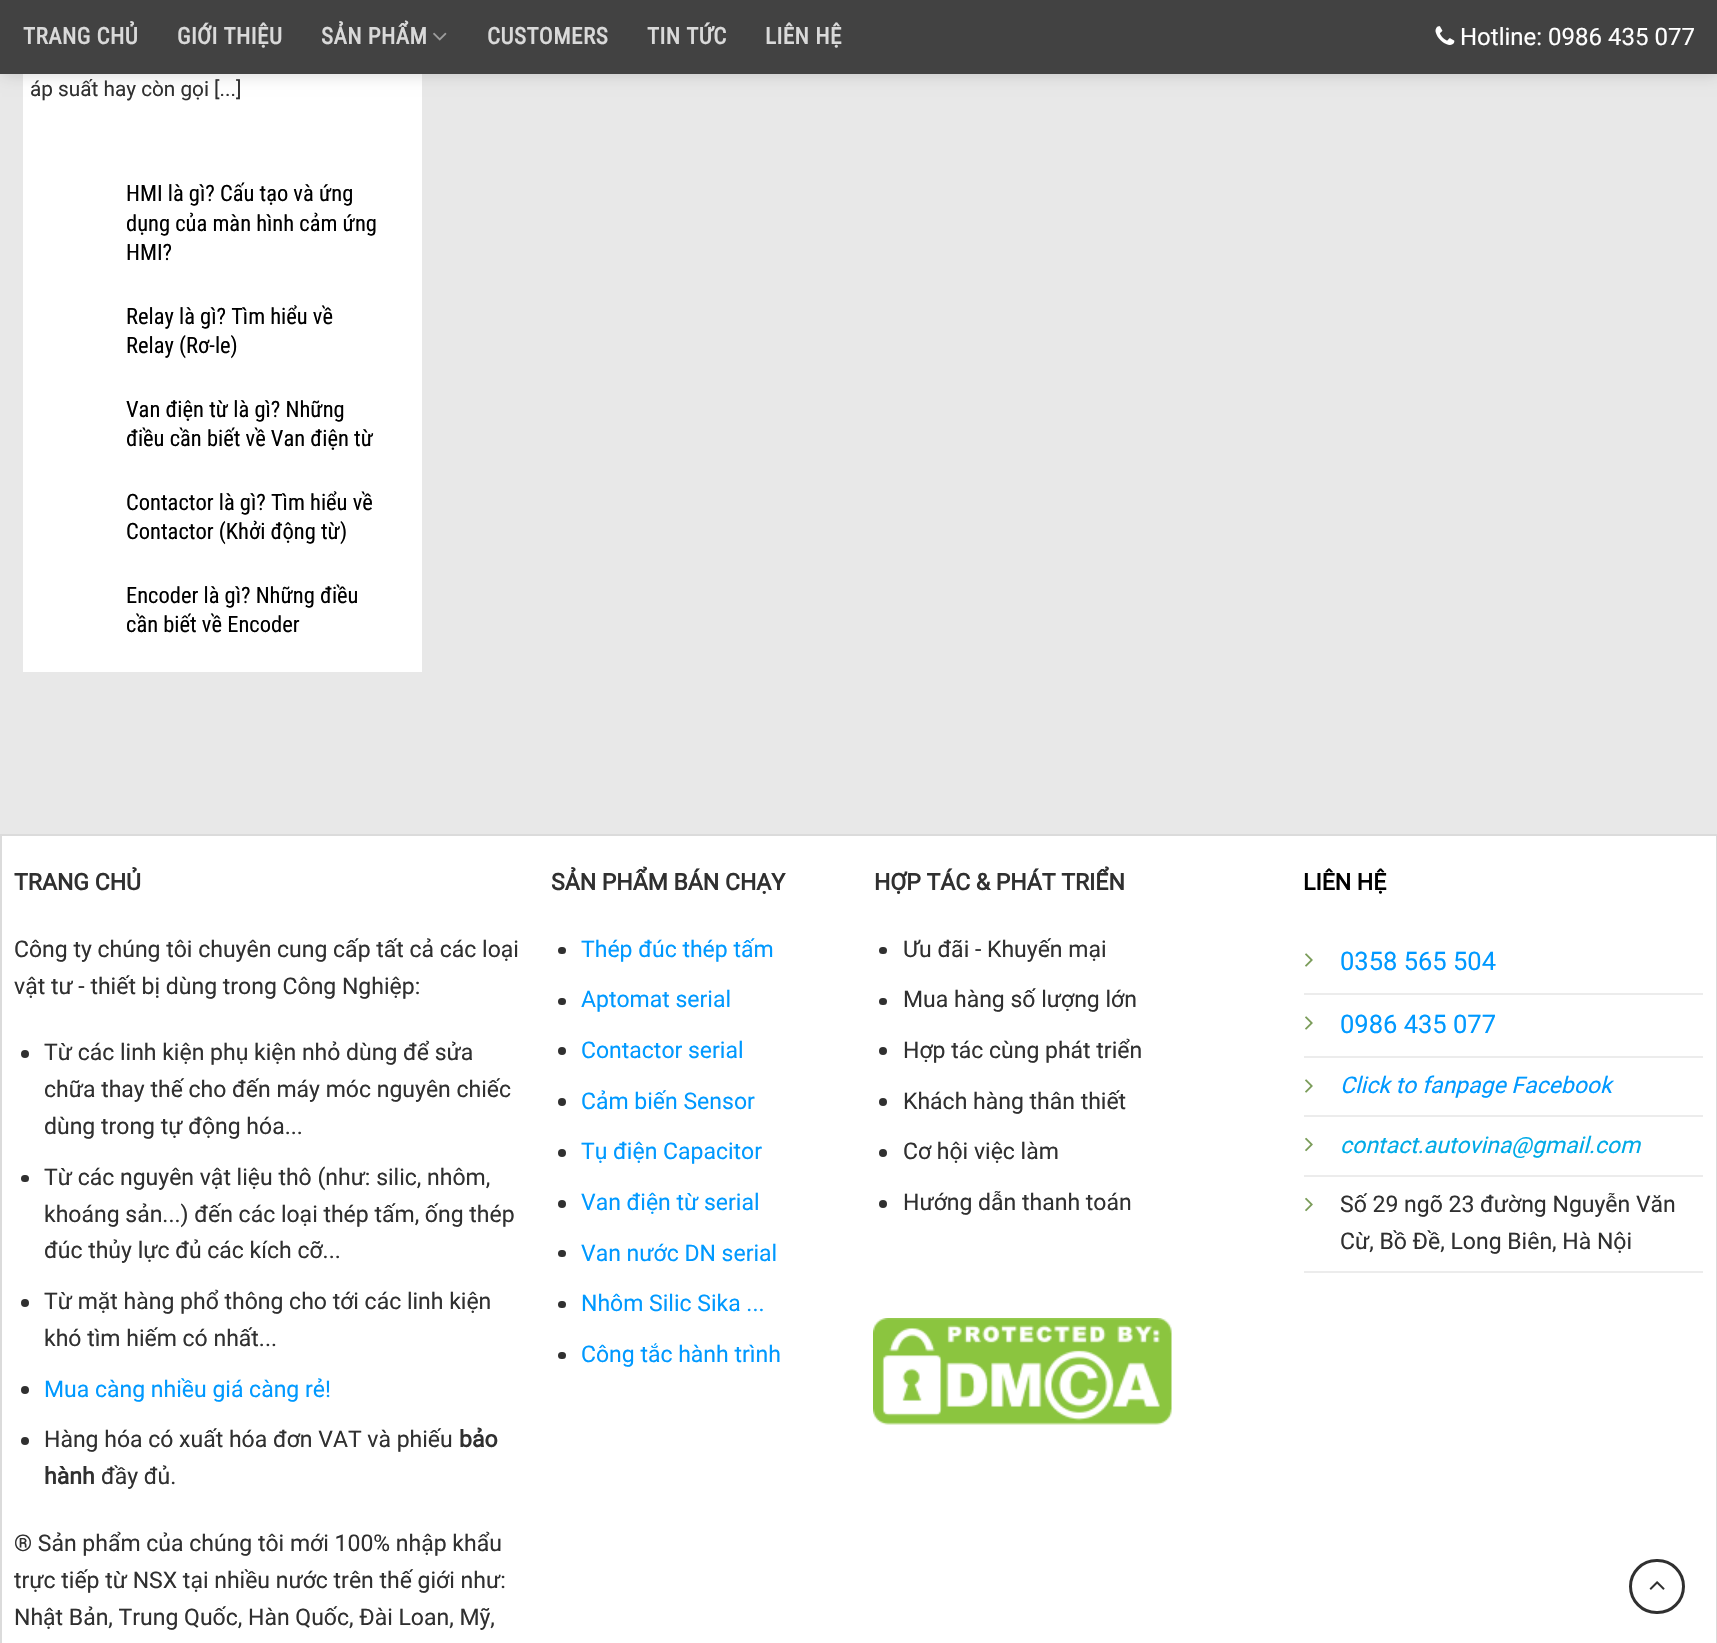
void draw(SkCanvas* canvas) {
    SkPaint paint;
    paint.setAntiAlias(true);
    auto face = [&](const char* family, int weight, float size, bool italic = false) {
        SkFontStyle style(weight, SkFontStyle::kNormal_Width,
            italic ? SkFontStyle::kItalic_Slant : SkFontStyle::kUpright_Slant);
        SkFont result(fontMgr->matchFamilyStyle(family, style), size);
        result.setSubpixel(true);
        return result;
    };
    auto write = [&](const char* s, float x, float y, const SkFont& font, SkColor color) {
        SkPaint ink(SkColor4f::FromColor(color));
        ink.setAntiAlias(true);
        canvas->drawString(s, x, y, font, ink);
    };
    auto writeSpaced = [&](const char* s, float x, float y, const SkFont& font, const SkPaint& ink, float letter, float word) {
        std::vector<SkGlyphID> glyphs(font.countText(s, strlen(s), SkTextEncoding::kUTF8));
        std::vector<float> xs(glyphs.size());
        font.textToGlyphs(s, strlen(s), SkTextEncoding::kUTF8, glyphs);
        font.getXPos(glyphs, xs, x);
        float extra = 0;
        for (size_t i = 0; i < glyphs.size(); i++) {
            xs[i] += extra;
            extra += letter + word * (glyphs[i] == font.unicharToGlyph(' '));
        }
        canvas->drawTextBlob(SkTextBlob::MakeFromPosHGlyphs(glyphs, xs, y, font), 0, 0, ink);
    };
    auto block = [&](float x, float y, float w, float h, SkColor color) {
        SkPaint ink(SkColor4f::FromColor(color));
        ink.setAntiAlias(true);
        canvas->drawRect(SkRect::MakeXYWH(x, y, w, h), ink);
    };
    auto card = [&](float x, float y, float w, float h, float radius, SkColor color) {
        SkPaint ink(SkColor4f::FromColor(color));
        ink.setAntiAlias(true);
        canvas->drawRoundRect(SkRect::MakeXYWH(x, y, w, h), radius, radius, ink);
    };
    auto paste = [&](const char* path, float x, float y, float w, float h) {
        auto image = SkImages::DeferredFromEncodedData(SkData::MakeFromFileName(path));
        canvas->drawImageRect(image, SkRect::MakeXYWH(x, y, w, h), SkSamplingOptions());
    };
    canvas->clear(SkColorSetRGB(232, 232, 232));
    block(23, 74, 399, 598, SK_ColorWHITE);
    paint.setColor(SkColorSetARGB(38, 0, 0, 0));
    paint.setMaskFilter(SkMaskFilter::MakeBlur(kNormal_SkBlurStyle, 7.5f));
    canvas->drawRect(SkRect::MakeXYWH(2, 2, 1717, 73), paint);
    paint.setMaskFilter(nullptr);
    block(0, 0, 1717, 74, SkColorSetRGB(66, 66, 66));
    auto kFont1 = face("Roboto Condensed", 700, 23);
    paint.setColor(SkColorSetRGB(217, 217, 217));
    writeSpaced("TRANG CHỦ", 23, 44, kFont1, paint, 0.5f, 0);
    writeSpaced("GIỚI THIỆU", 177, 44, kFont1, paint, 0.5f, 0);
    writeSpaced("SẢN PHẨM", 321, 44, kFont1, paint, 0.5f, 0);
    paste("pic1.png", 433, 32, 14, 9);
    writeSpaced("CUSTOMERS", 487, 44, kFont1, paint, 0.5f, 0);
    writeSpaced("TIN TỨC", 647, 44, kFont1, paint, 0.5f, 0);
    writeSpaced("LIÊN HỆ", 765, 44, kFont1, paint, 0.5f, 0);
    paste("pic2.png", 1435, 26, 20, 19);
    auto kFont2 = face("Roboto", 400, 24);
    write("Hotline: 0986 435 077", 1460, 45, kFont2, SK_ColorWHITE);
    auto kFont3 = face("Roboto", 400, 20.75f);
    write("áp suất hay còn gọi [...]", 30, 96, kFont3, SkColorSetRGB(48, 48, 48));
    auto kFont4 = face("Roboto Condensed", 400, 22.5f);
    write("HMI là gì? Cấu tạo và ứng", 126, 201, kFont4, SK_ColorBLACK);
    write("dụng của màn hình cảm ứng", 126, 231, kFont4, SK_ColorBLACK);
    write("HMI?", 126, 260, kFont4, SK_ColorBLACK);
    write("Relay là gì? Tìm hiểu về", 126, 324, kFont4, SK_ColorBLACK);
    write("Relay (Rơ-le)", 126, 353, kFont4, SK_ColorBLACK);
    write("Van điện từ là gì? Những", 126, 417, kFont4, SK_ColorBLACK);
    write("điều cần biết về Van điện từ", 126, 446, kFont4, SK_ColorBLACK);
    write("Contactor là gì? Tìm hiểu về", 126, 510, kFont4, SK_ColorBLACK);
    write("Contactor (Khởi động từ)", 126, 539, kFont4, SK_ColorBLACK);
    write("Encoder là gì? Những điều", 126, 603, kFont4, SK_ColorBLACK);
    write("cần biết về Encoder", 126, 632, kFont4, SK_ColorBLACK);
    paint.setColor(SK_ColorWHITE);
    canvas->drawRect(SkRect::MakeXYWH(1, 835, 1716, 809), paint);
    paint.setStyle(SkPaint::kStroke_Style);
    paint.setStrokeWidth(2);
    paint.setColor(SkColorSetRGB(219, 219, 219));
    canvas->drawRect(SkRect::MakeXYWH(1, 835, 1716, 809), paint);
    auto kFont5 = face("Roboto", 700, 23);
    write("TRANG CHỦ", 14, 890, kFont5, SkColorSetRGB(48, 48, 48));
    auto kFont6 = face("Roboto", 400, 23);
    write("Công ty chúng tôi chuyên cung cấp tất cả các loại", 14, 957, kFont6, SkColorSetRGB(48, 48, 48));
    write("vật tư - thiết bị dùng trong Công Nghiệp:", 14, 994, kFont6, SkColorSetRGB(48, 48, 48));
    paint.setStyle(SkPaint::kFill_Style);
    paint.setColor(SkColorSetRGB(48, 48, 48));
    canvas->drawCircle(25, 1054, 4, paint);
    write("Từ các linh kiện phụ kiện nhỏ dùng để sửa", 44, 1060, kFont6, SkColorSetRGB(48, 48, 48));
    write("chữa thay thế cho đến máy móc nguyên chiếc", 44, 1097, kFont6, SkColorSetRGB(48, 48, 48));
    write("dùng trong tự động hóa...", 44, 1134, kFont6, SkColorSetRGB(48, 48, 48));
    card(21, 1175, 8, 7, 3.5f, SkColorSetRGB(48, 48, 48));
    write("Từ các nguyên vật liệu thô (như: silic, nhôm,", 44, 1185, kFont6, SkColorSetRGB(48, 48, 48));
    write("khoáng sản...) đến các loại thép tấm, ống thép", 44, 1222, kFont6, SkColorSetRGB(48, 48, 48));
    write("đúc thủy lực đủ các kích cỡ...", 44, 1258, kFont6, SkColorSetRGB(48, 48, 48));
    canvas->drawCircle(25, 1303, 4, paint);
    write("Từ mặt hàng phổ thông cho tới các linh kiện", 44, 1309, kFont6, SkColorSetRGB(48, 48, 48));
    write("khó tìm hiếm có nhất...", 44, 1346, kFont6, SkColorSetRGB(48, 48, 48));
    canvas->drawCircle(25, 1390, 4, paint);
    write("Mua càng nhiều giá càng rẻ!", 44, 1397, kFont6, SkColorSetRGB(0, 153, 255));
    canvas->drawCircle(25, 1441, 4, paint);
    write("Hàng hóa có xuất hóa đơn VAT và phiếu", 44, 1447, kFont6, SkColorSetRGB(48, 48, 48));
    write("bảo", 459, 1447, kFont5, SkColorSetRGB(48, 48, 48));
    write("hành", 44, 1484, kFont5, SkColorSetRGB(48, 48, 48));
    write("đầy đủ.", 101, 1484, kFont6, SkColorSetRGB(48, 48, 48));
    write("® Sản phẩm của chúng tôi mới 100% nhập khẩu", 14, 1551, kFont6, SkColorSetRGB(48, 48, 48));
    write("trực tiếp từ NSX tại nhiều nước trên thế giới như:", 14, 1588, kFont6, SkColorSetRGB(48, 48, 48));
    write("Nhật Bản, Trung Quốc, Hàn Quốc, Đài Loan, Mỹ,", 14, 1625, kFont6, SkColorSetRGB(48, 48, 48));
    write("SẢN PHẨM BÁN CHẠY", 551, 890, kFont5, SkColorSetRGB(48, 48, 48));
    card(558, 947, 8, 7, 3.5f, SkColorSetRGB(48, 48, 48));
    write("Thép đúc thép tấm", 581, 957, kFont6, SkColorSetRGB(0, 153, 255));
    card(558, 998, 8, 7, 3.5f, SkColorSetRGB(48, 48, 48));
    write("Aptomat serial", 581, 1007, kFont6, SkColorSetRGB(0, 153, 255));
    canvas->drawCircle(562, 1051, 4, paint);
    write("Contactor serial", 581, 1058, kFont6, SkColorSetRGB(0, 153, 255));
    canvas->drawCircle(562, 1102, 4, paint);
    write("Cảm biến Sensor", 581, 1109, kFont6, SkColorSetRGB(0, 153, 255));
    canvas->drawCircle(562, 1153, 4, paint);
    write("Tụ điện Capacitor", 581, 1159, kFont6, SkColorSetRGB(0, 153, 255));
    canvas->drawCircle(562, 1204, 4, paint);
    write("Van điện từ serial", 581, 1210, kFont6, SkColorSetRGB(0, 153, 255));
    card(558, 1250, 8, 7, 3.5f, SkColorSetRGB(48, 48, 48));
    write("Van nước DN serial", 581, 1261, kFont6, SkColorSetRGB(0, 153, 255));
    card(558, 1301, 8, 7, 3.5f, SkColorSetRGB(48, 48, 48));
    write("Nhôm Silic Sika ...", 581, 1311, kFont6, SkColorSetRGB(0, 153, 255));
    card(558, 1352, 8, 7, 3.5f, SkColorSetRGB(48, 48, 48));
    write("Công tắc hành trình", 581, 1362, kFont6, SkColorSetRGB(0, 153, 255));
    write("HỢP TÁC & PHÁT TRIỂN", 874, 890, kFont5, SkColorSetRGB(48, 48, 48));
    card(879, 947, 8, 7, 3.5f, SkColorSetRGB(48, 48, 48));
    write("Ưu đãi - Khuyến mại", 903, 957, kFont6, SkColorSetRGB(48, 48, 48));
    card(879, 998, 8, 7, 3.5f, SkColorSetRGB(48, 48, 48));
    write("Mua hàng số lượng lớn", 903, 1007, kFont6, SkColorSetRGB(48, 48, 48));
    canvas->drawCircle(883, 1051, 4, paint);
    write("Hợp tác cùng phát triển", 903, 1058, kFont6, SkColorSetRGB(48, 48, 48));
    canvas->drawCircle(883, 1102, 4, paint);
    write("Khách hàng thân thiết", 903, 1109, kFont6, SkColorSetRGB(48, 48, 48));
    canvas->drawCircle(883, 1153, 4, paint);
    write("Cơ hội việc làm", 903, 1159, kFont6, SkColorSetRGB(48, 48, 48));
    canvas->drawCircle(883, 1204, 4, paint);
    write("Hướng dẫn thanh toán", 903, 1210, kFont6, SkColorSetRGB(48, 48, 48));
    paste("pic3.png", 873, 1318, 299, 107);
    write("LIÊN HỆ", 1303, 890, kFont5, SK_ColorBLACK);
    block(1304, 993, 399, 2, SkColorSetRGB(236, 236, 236));
    paste("pic4.png", 1305, 953, 8, 14);
    auto kFont7 = face("Roboto", 400, 25.5f);
    write("0358 565 504", 1340, 970, kFont7, SkColorSetRGB(0, 153, 255));
    block(1304, 1056, 399, 2, SkColorSetRGB(236, 236, 236));
    paste("pic4.png", 1305, 1016, 8, 14);
    write("0986 435 077", 1340, 1033, kFont7, SkColorSetRGB(0, 153, 255));
    block(1304, 1115, 399, 2, SkColorSetRGB(236, 236, 236));
    paste("pic4.png", 1305, 1079, 8, 14);
    auto kFont8 = face("Roboto", 400, 23, true);
    write("Click to fanpage Facebook", 1340, 1093, kFont8, SkColorSetRGB(0, 153, 255));
    block(1304, 1175, 399, 2, SkColorSetRGB(236, 236, 236));
    paste("pic5.png", 1305, 1137, 8, 15);
    write("contact.autovina@gmail.com", 1340, 1153, kFont8, SkColorSetRGB(0, 170, 231));
    block(1304, 1271, 399, 2, SkColorSetRGB(236, 236, 236));
    paste("pic5.png", 1305, 1197, 8, 15);
    write("Số 29 ngõ 23 đường Nguyễn Văn", 1340, 1212, kFont6, SkColorSetRGB(48, 48, 48));
    write("Cừ, Bồ Đề, Long Biên, Hà Nội", 1340, 1249, kFont6, SkColorSetRGB(48, 48, 48));
    paint.setStyle(SkPaint::kStroke_Style);
    paint.setStrokeWidth(3);
    canvas->drawRoundRect(SkRect::MakeXYWH(1630.5f, 1560.5f, 53, 52), 26, 26, paint);
    paste("pic6.png", 1649, 1581, 16, 9);
}
